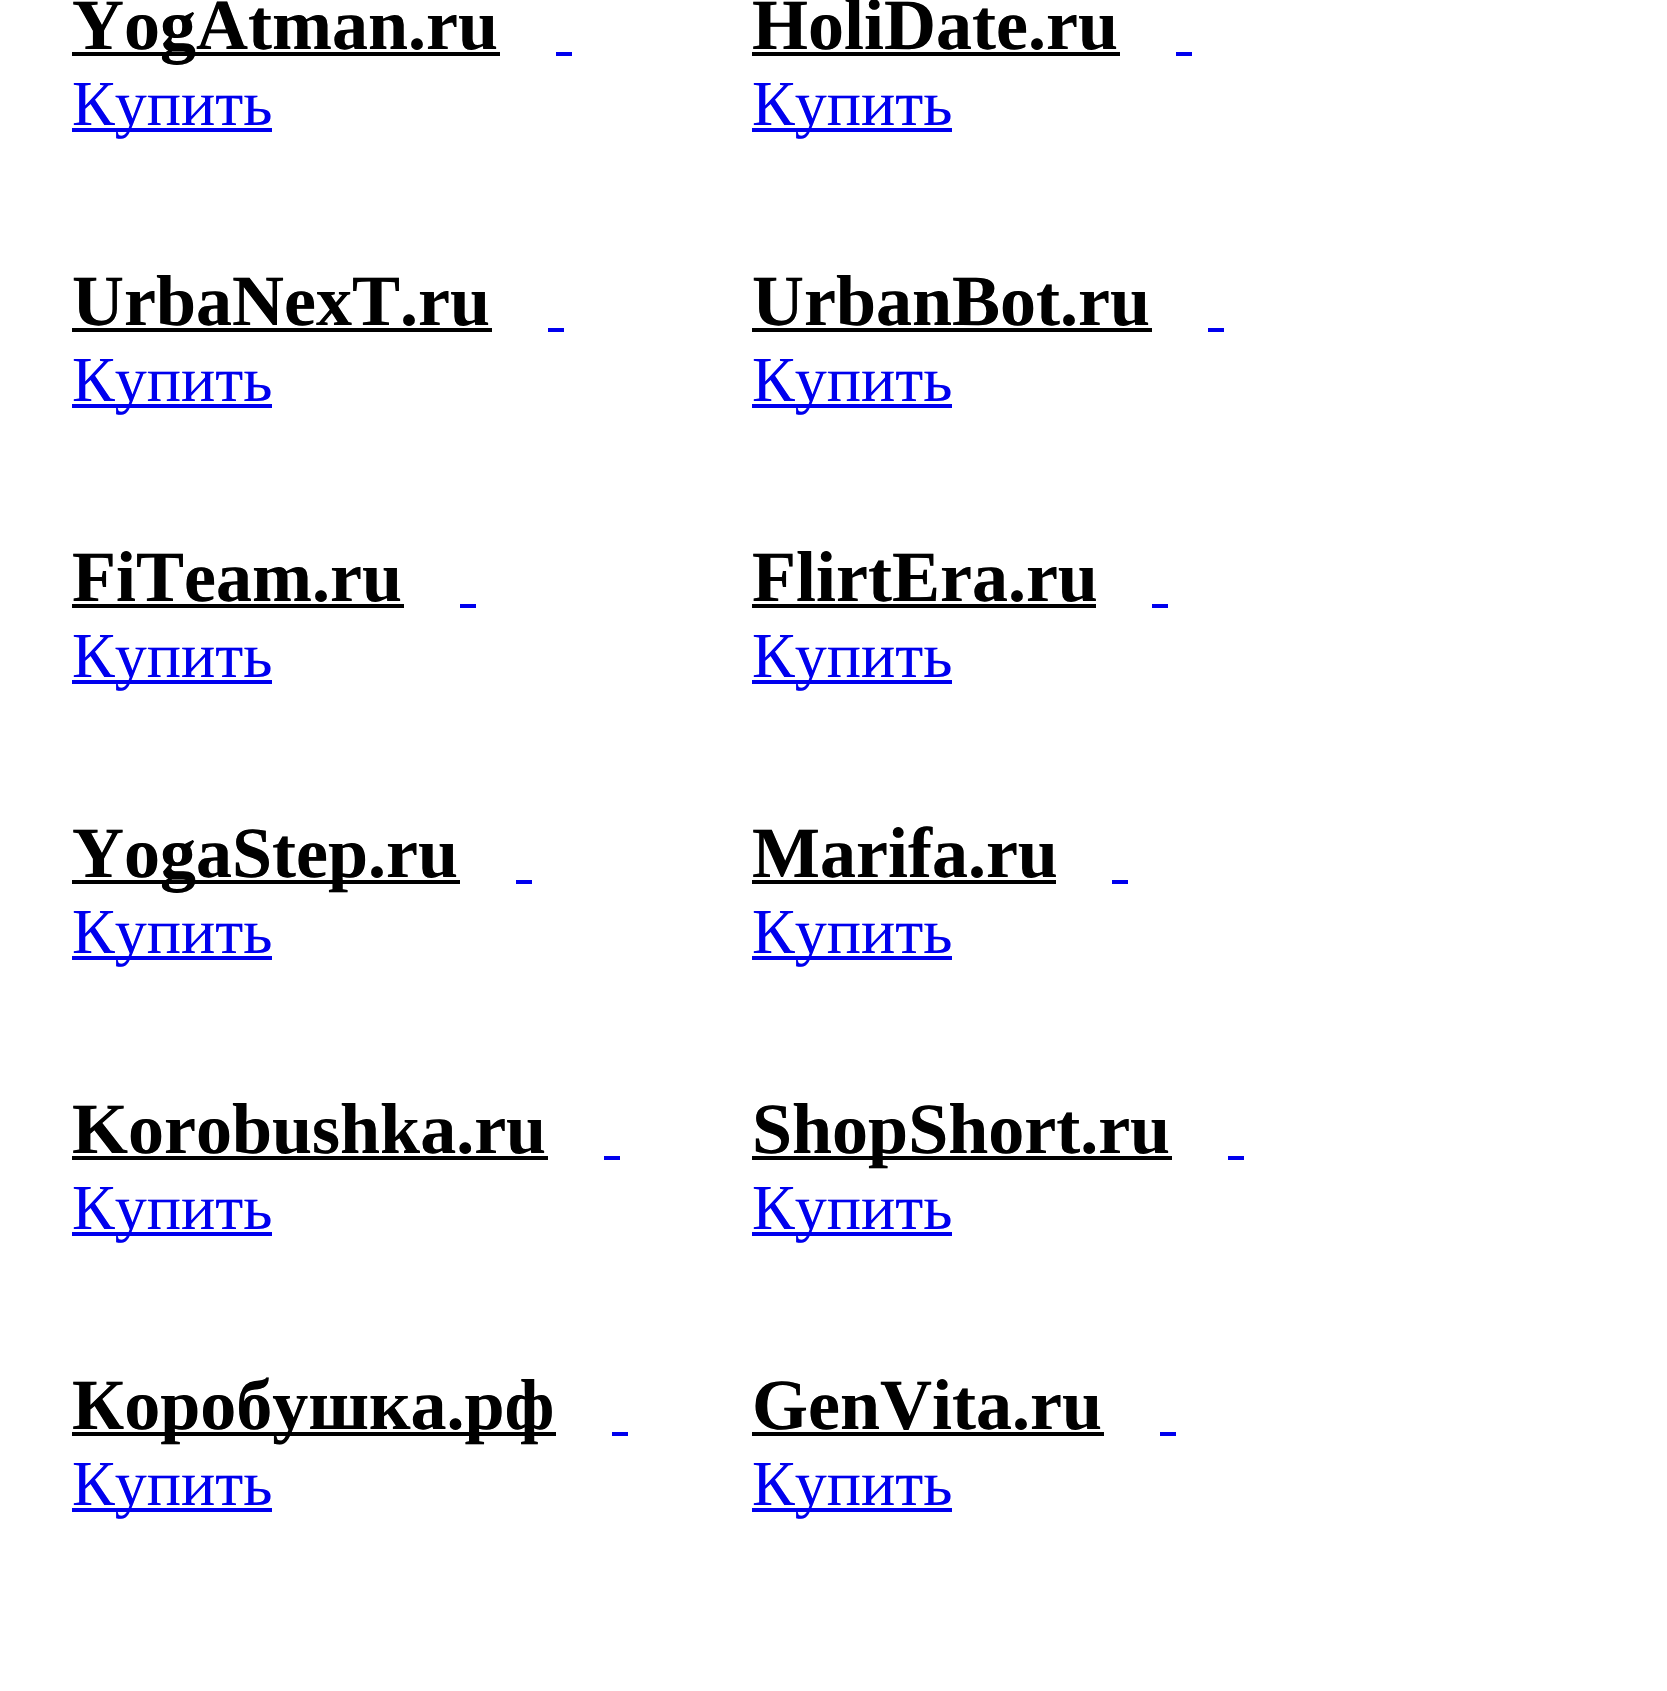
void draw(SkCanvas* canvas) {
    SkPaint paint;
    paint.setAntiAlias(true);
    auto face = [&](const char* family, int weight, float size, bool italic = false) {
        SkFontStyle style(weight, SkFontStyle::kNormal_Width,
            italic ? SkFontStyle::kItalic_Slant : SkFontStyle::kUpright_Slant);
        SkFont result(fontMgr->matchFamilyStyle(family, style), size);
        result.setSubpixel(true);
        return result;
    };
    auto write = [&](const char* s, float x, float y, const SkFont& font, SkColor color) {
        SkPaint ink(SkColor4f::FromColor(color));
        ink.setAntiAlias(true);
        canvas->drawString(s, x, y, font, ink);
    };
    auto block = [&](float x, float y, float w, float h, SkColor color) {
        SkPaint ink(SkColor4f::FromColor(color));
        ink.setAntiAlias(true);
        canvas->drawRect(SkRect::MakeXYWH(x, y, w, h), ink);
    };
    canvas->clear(SK_ColorWHITE);
    block(72, 52, 428, 4, SK_ColorBLACK);
    auto kFont1 = face("Liberation Serif", 700, 72);
    write("YogAtman.ru", 72, 49, kFont1, SK_ColorBLACK);
    block(72, 128, 200, 4, SkColorSetRGB(0, 0, 238));
    auto kFont2 = face("Liberation Serif", 400, 64);
    write("Купить", 72, 125, kFont2, SkColorSetRGB(0, 0, 238));
    block(556, 52, 16, 4, SkColorSetRGB(0, 0, 238));
    write("HoliDate.ru", 752, 49, kFont1, SK_ColorBLACK);
    block(752, 52, 368, 4, SK_ColorBLACK);
    block(752, 128, 200, 4, SkColorSetRGB(0, 0, 238));
    write("Купить", 752, 125, kFont2, SkColorSetRGB(0, 0, 238));
    block(1176, 52, 16, 4, SkColorSetRGB(0, 0, 238));
    write("UrbaNexT.ru", 72, 325, kFont1, SK_ColorBLACK);
    block(72, 328, 420, 4, SK_ColorBLACK);
    block(72, 404, 200, 4, SkColorSetRGB(0, 0, 238));
    write("Купить", 72, 401, kFont2, SkColorSetRGB(0, 0, 238));
    block(548, 328, 16, 4, SkColorSetRGB(0, 0, 238));
    write("UrbanBot.ru", 752, 325, kFont1, SK_ColorBLACK);
    block(752, 328, 400, 4, SK_ColorBLACK);
    block(752, 404, 200, 4, SkColorSetRGB(0, 0, 238));
    write("Купить", 752, 401, kFont2, SkColorSetRGB(0, 0, 238));
    block(1208, 328, 16, 4, SkColorSetRGB(0, 0, 238));
    write("FiTeam.ru", 72, 601, kFont1, SK_ColorBLACK);
    block(72, 604, 332, 4, SK_ColorBLACK);
    block(72, 680, 200, 4, SkColorSetRGB(0, 0, 238));
    write("Купить", 72, 677, kFont2, SkColorSetRGB(0, 0, 238));
    block(460, 604, 16, 4, SkColorSetRGB(0, 0, 238));
    write("FlirtEra.ru", 752, 601, kFont1, SK_ColorBLACK);
    block(752, 604, 344, 4, SK_ColorBLACK);
    block(752, 680, 200, 4, SkColorSetRGB(0, 0, 238));
    write("Купить", 752, 677, kFont2, SkColorSetRGB(0, 0, 238));
    block(1152, 604, 16, 4, SkColorSetRGB(0, 0, 238));
    block(72, 880, 388, 4, SK_ColorBLACK);
    write("YogaStep.ru", 72, 877, kFont1, SK_ColorBLACK);
    block(72, 956, 200, 4, SkColorSetRGB(0, 0, 238));
    write("Купить", 72, 953, kFont2, SkColorSetRGB(0, 0, 238));
    block(516, 880, 16, 4, SkColorSetRGB(0, 0, 238));
    write("Marifa.ru", 752, 877, kFont1, SK_ColorBLACK);
    block(752, 880, 304, 4, SK_ColorBLACK);
    block(752, 956, 200, 4, SkColorSetRGB(0, 0, 238));
    write("Купить", 752, 953, kFont2, SkColorSetRGB(0, 0, 238));
    block(1112, 880, 16, 4, SkColorSetRGB(0, 0, 238));
    write("Korobushka.ru", 72, 1153, kFont1, SK_ColorBLACK);
    block(72, 1156, 476, 4, SK_ColorBLACK);
    block(72, 1232, 200, 4, SkColorSetRGB(0, 0, 238));
    write("Купить", 72, 1229, kFont2, SkColorSetRGB(0, 0, 238));
    block(604, 1156, 16, 4, SkColorSetRGB(0, 0, 238));
    block(752, 1156, 420, 4, SK_ColorBLACK);
    write("ShopShort.ru", 752, 1153, kFont1, SK_ColorBLACK);
    block(752, 1232, 200, 4, SkColorSetRGB(0, 0, 238));
    write("Купить", 752, 1229, kFont2, SkColorSetRGB(0, 0, 238));
    block(1228, 1156, 16, 4, SkColorSetRGB(0, 0, 238));
    block(72, 1432, 484, 4, SK_ColorBLACK);
    write("Коробушка.рф", 72, 1429, kFont1, SK_ColorBLACK);
    block(72, 1508, 200, 4, SkColorSetRGB(0, 0, 238));
    write("Купить", 72, 1505, kFont2, SkColorSetRGB(0, 0, 238));
    block(612, 1432, 16, 4, SkColorSetRGB(0, 0, 238));
    write("GenVita.ru", 752, 1429, kFont1, SK_ColorBLACK);
    block(752, 1432, 352, 4, SK_ColorBLACK);
    block(752, 1508, 200, 4, SkColorSetRGB(0, 0, 238));
    write("Купить", 752, 1505, kFont2, SkColorSetRGB(0, 0, 238));
    block(1160, 1432, 16, 4, SkColorSetRGB(0, 0, 238));
}
